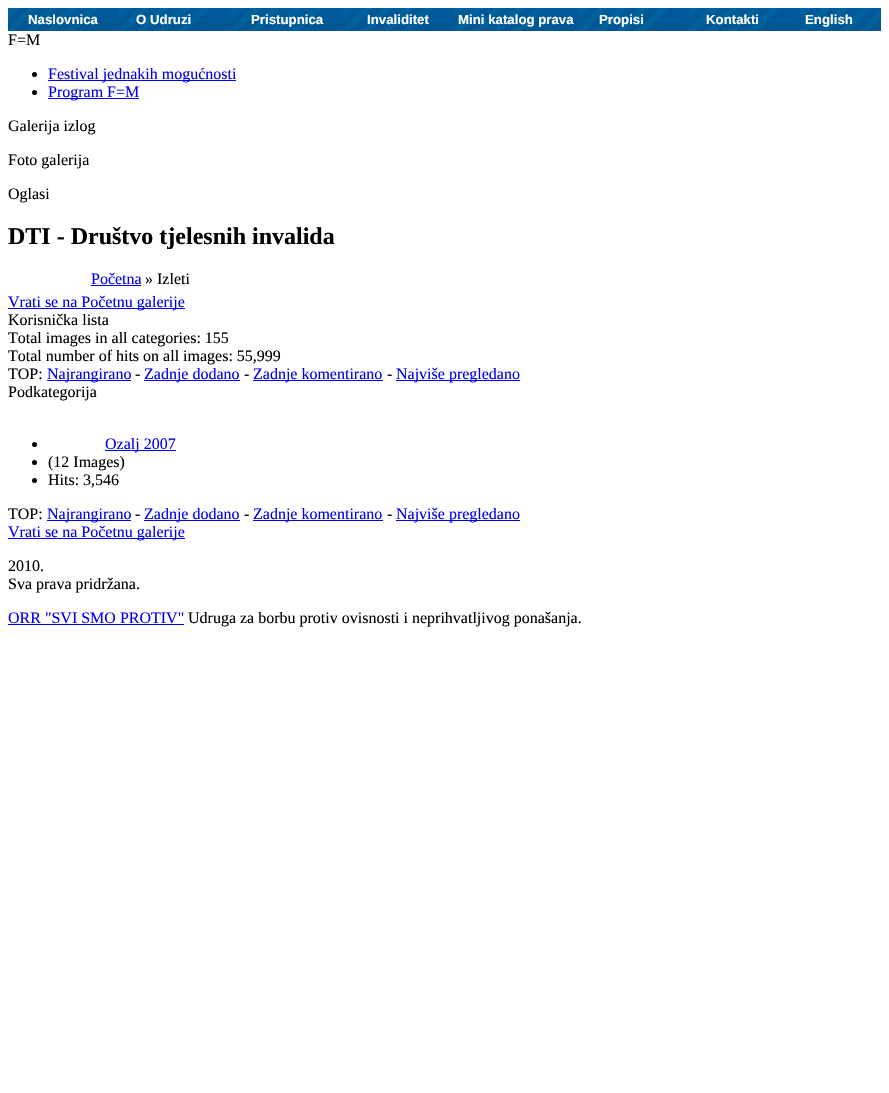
void draw(SkCanvas* canvas) {
    SkPaint paint;
    paint.setAntiAlias(true);
    auto face = [&](const char* family, int weight, float size, bool italic = false) {
        SkFontStyle style(weight, SkFontStyle::kNormal_Width,
            italic ? SkFontStyle::kItalic_Slant : SkFontStyle::kUpright_Slant);
        SkFont result(fontMgr->matchFamilyStyle(family, style), size);
        result.setSubpixel(true);
        return result;
    };
    auto write = [&](const char* s, float x, float y, const SkFont& font, SkColor color) {
        SkPaint ink(SkColor4f::FromColor(color));
        ink.setAntiAlias(true);
        canvas->drawString(s, x, y, font, ink);
    };
    auto block = [&](float x, float y, float w, float h, SkColor color) {
        SkPaint ink(SkColor4f::FromColor(color));
        ink.setAntiAlias(true);
        canvas->drawRect(SkRect::MakeXYWH(x, y, w, h), ink);
    };
    auto paste = [&](const char* path, float x, float y, float w, float h) {
        auto image = SkImages::DeferredFromEncodedData(SkData::MakeFromFileName(path));
        canvas->drawImageRect(image, SkRect::MakeXYWH(x, y, w, h), SkSamplingOptions());
    };
    canvas->clear(SK_ColorWHITE);
    paste("pic1.png", 8, 8, 111, 23);
    auto kFont1 = face("Liberation Sans", 700, 13.25f);
    write("Naslovnica", 28, 24, kFont1, SK_ColorWHITE);
    paste("pic2.png", 119, 8, 112, 23);
    write("O Udruzi", 136, 24, kFont1, SK_ColorWHITE);
    paste("pic3.png", 231, 8, 112, 23);
    write("Pristupnica", 251, 24, kFont1, SK_ColorWHITE);
    paste("pic4.png", 343, 8, 111, 23);
    write("Invaliditet", 367, 24, kFont1, SK_ColorWHITE);
    paste("pic5.png", 454, 8, 124, 23);
    write("Mini katalog prava", 458, 24, kFont1, SK_ColorWHITE);
    paste("pic6.png", 578, 8, 111, 23);
    write("Propisi", 599, 24, kFont1, SK_ColorWHITE);
    paste("pic7.png", 689, 8, 112, 23);
    write("Kontakti", 706, 24, kFont1, SK_ColorWHITE);
    paste("pic8.png", 801, 8, 80, 23);
    write("English", 805, 24, kFont1, SK_ColorWHITE);
    auto kFont2 = face("Liberation Serif", 400, 16);
    write("F=M", 8, 45, kFont2, SK_ColorBLACK);
    paint.setColor(SK_ColorBLACK);
    canvas->drawCircle(34.5f, 74.5f, 2.5f, paint);
    block(48, 80, 188, 1, SkColorSetRGB(0, 0, 238));
    write("Festival jednakih mogućnosti", 48, 79, kFont2, SkColorSetRGB(0, 0, 238));
    canvas->drawCircle(34.5f, 92.5f, 2.5f, paint);
    block(48, 98, 91, 1, SkColorSetRGB(0, 0, 238));
    write("Program F=M", 48, 97, kFont2, SkColorSetRGB(0, 0, 238));
    write("Galerija izlog", 8, 131, kFont2, SK_ColorBLACK);
    write("Foto galerija", 8, 165, kFont2, SK_ColorBLACK);
    write("Oglasi", 8, 199, kFont2, SK_ColorBLACK);
    auto kFont3 = face("Liberation Serif", 700, 24);
    write("DTI - Društvo tjelesnih invalida", 8, 244, kFont3, SK_ColorBLACK);
    write("Početna", 91, 284, kFont2, SkColorSetRGB(0, 0, 238));
    block(91, 285, 50, 1, SkColorSetRGB(0, 0, 238));
    write("» Izleti", 145, 284, kFont2, SK_ColorBLACK);
    block(8, 308, 177, 1, SkColorSetRGB(0, 0, 238));
    write("Vrati se na Početnu galerije", 8, 307, kFont2, SkColorSetRGB(0, 0, 238));
    write("Korisnička lista", 8, 325, kFont2, SK_ColorBLACK);
    write("Total images in all categories: 155", 8, 343, kFont2, SK_ColorBLACK);
    write("Total number of hits on all images: 55,999", 8, 361, kFont2, SK_ColorBLACK);
    write("TOP:", 8, 379, kFont2, SK_ColorBLACK);
    block(47, 380, 84, 1, SkColorSetRGB(0, 0, 238));
    write("Najrangirano", 47, 379, kFont2, SkColorSetRGB(0, 0, 238));
    write("-", 135, 379, kFont2, SK_ColorBLACK);
    block(144, 380, 96, 1, SkColorSetRGB(0, 0, 238));
    write("Zadnje dodano", 144, 379, kFont2, SkColorSetRGB(0, 0, 238));
    write("-", 244, 379, kFont2, SK_ColorBLACK);
    block(253, 380, 130, 1, SkColorSetRGB(0, 0, 238));
    write("Zadnje komentirano", 253, 379, kFont2, SkColorSetRGB(0, 0, 238));
    write("-", 387, 379, kFont2, SK_ColorBLACK);
    block(396, 380, 124, 1, SkColorSetRGB(0, 0, 238));
    write("Najviše pregledano", 396, 379, kFont2, SkColorSetRGB(0, 0, 238));
    write("Podkategorija", 8, 397, kFont2, SK_ColorBLACK);
    canvas->drawCircle(34.5f, 444.5f, 2.5f, paint);
    block(105, 450, 71, 1, SkColorSetRGB(0, 0, 238));
    write("Ozalj 2007", 105, 449, kFont2, SkColorSetRGB(0, 0, 238));
    canvas->drawCircle(34.5f, 462.5f, 2.5f, paint);
    write("(12 Images)", 48, 467, kFont2, SK_ColorBLACK);
    canvas->drawCircle(34.5f, 480.5f, 2.5f, paint);
    write("Hits: 3,546", 48, 485, kFont2, SK_ColorBLACK);
    write("TOP:", 8, 519, kFont2, SK_ColorBLACK);
    block(47, 520, 84, 1, SkColorSetRGB(0, 0, 238));
    write("Najrangirano", 47, 519, kFont2, SkColorSetRGB(0, 0, 238));
    write("-", 135, 519, kFont2, SK_ColorBLACK);
    block(144, 520, 96, 1, SkColorSetRGB(0, 0, 238));
    write("Zadnje dodano", 144, 519, kFont2, SkColorSetRGB(0, 0, 238));
    write("-", 244, 519, kFont2, SK_ColorBLACK);
    block(253, 520, 130, 1, SkColorSetRGB(0, 0, 238));
    write("Zadnje komentirano", 253, 519, kFont2, SkColorSetRGB(0, 0, 238));
    write("-", 387, 519, kFont2, SK_ColorBLACK);
    block(396, 520, 124, 1, SkColorSetRGB(0, 0, 238));
    write("Najviše pregledano", 396, 519, kFont2, SkColorSetRGB(0, 0, 238));
    block(8, 538, 177, 1, SkColorSetRGB(0, 0, 238));
    write("Vrati se na Početnu galerije", 8, 537, kFont2, SkColorSetRGB(0, 0, 238));
    write("2010.", 8, 571, kFont2, SK_ColorBLACK);
    write("Sva prava pridržana.", 8, 589, kFont2, SK_ColorBLACK);
    write("ORR \"SVI SMO PROTIV\"", 8, 623, kFont2, SkColorSetRGB(0, 0, 238));
    block(8, 624, 176, 1, SkColorSetRGB(0, 0, 238));
    write("Udruga za borbu protiv ovisnosti i neprihvatljivog ponašanja.", 188, 623, kFont2, SK_ColorBLACK);
}
